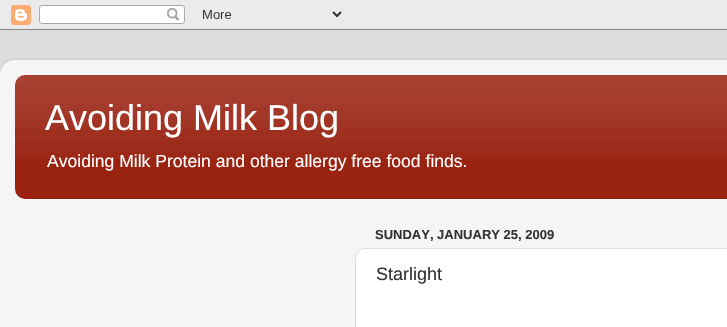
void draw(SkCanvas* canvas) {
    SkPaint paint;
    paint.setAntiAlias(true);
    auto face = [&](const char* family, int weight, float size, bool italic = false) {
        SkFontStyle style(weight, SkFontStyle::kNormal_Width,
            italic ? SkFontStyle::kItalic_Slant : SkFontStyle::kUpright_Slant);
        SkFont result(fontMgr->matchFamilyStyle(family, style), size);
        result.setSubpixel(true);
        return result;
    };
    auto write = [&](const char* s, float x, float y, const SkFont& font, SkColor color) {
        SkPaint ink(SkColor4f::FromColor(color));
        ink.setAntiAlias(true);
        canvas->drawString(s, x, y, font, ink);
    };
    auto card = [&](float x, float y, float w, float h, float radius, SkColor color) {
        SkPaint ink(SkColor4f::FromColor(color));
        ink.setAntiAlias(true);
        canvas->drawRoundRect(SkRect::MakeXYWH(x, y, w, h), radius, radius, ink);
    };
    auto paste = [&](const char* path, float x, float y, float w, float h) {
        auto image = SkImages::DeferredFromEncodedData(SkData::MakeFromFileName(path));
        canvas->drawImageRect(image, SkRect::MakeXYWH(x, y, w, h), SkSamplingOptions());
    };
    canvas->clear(SkColorSetRGB(221, 221, 221));
    paste("pic1.png", 0, 0, 727, 30);
    canvas->save();
    canvas->clipPath(SkPathBuilder(SkPathFillType::kEvenOdd).moveTo(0, 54).lineTo(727, 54).lineTo(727, 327).lineTo(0, 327).close().moveTo(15, 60).lineTo(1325, 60).cubicTo(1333.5f, 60, 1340, 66.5f, 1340, 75).lineTo(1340, 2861).cubicTo(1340, 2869.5f, 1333.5f, 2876, 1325, 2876).lineTo(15, 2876).cubicTo(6.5f, 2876, 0, 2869.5f, 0, 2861).lineTo(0, 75).cubicTo(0, 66.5f, 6.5f, 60, 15, 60).close().detach(), true);
    paint.setColor(SkColorSetARGB(38, 0, 0, 0));
    paint.setMaskFilter(SkMaskFilter::MakeBlur(kNormal_SkBlurStyle, 1.5f));
    canvas->drawRoundRect(SkRect::MakeXYWH(0, 60, 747, 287), 15, 15, paint);
    paint.setMaskFilter(nullptr);
    canvas->restore();
    paste("pic2.png", 0, 60, 727, 267);
    card(15, 75, 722, 124, 10, SkColorSetRGB(153, 34, 17));
    paste("pic3.png", 15, 75, 712, 84);
    auto kFont1 = face("Liberation Sans", 400, 36);
    write("Avoiding Milk Blog", 45, 130, kFont1, SK_ColorWHITE);
    auto kFont2 = face("Liberation Sans", 400, 17.55f);
    write("Avoiding Milk Protein and other allergy free food finds.", 47, 167, kFont2, SK_ColorWHITE);
    auto kFont3 = face("Liberation Sans", 700, 13);
    write("SUNDAY, JANUARY 25, 2009", 375, 239, kFont3, SkColorSetRGB(51, 51, 51));
    paint.setColor(SK_ColorWHITE);
    canvas->drawRoundRect(SkRect::MakeXYWH(355.5f, 248.5f, 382, 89), 9.5f, 9.5f, paint);
    paint.setStyle(SkPaint::kStroke_Style);
    paint.setStrokeWidth(1);
    paint.setColor(SkColorSetRGB(221, 221, 221));
    canvas->drawRoundRect(SkRect::MakeXYWH(355.5f, 248.5f, 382, 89), 9.5f, 9.5f, paint);
    auto kFont4 = face("Liberation Sans", 400, 18);
    write("Starlight", 376, 280, kFont4, SkColorSetRGB(51, 51, 51));
}
